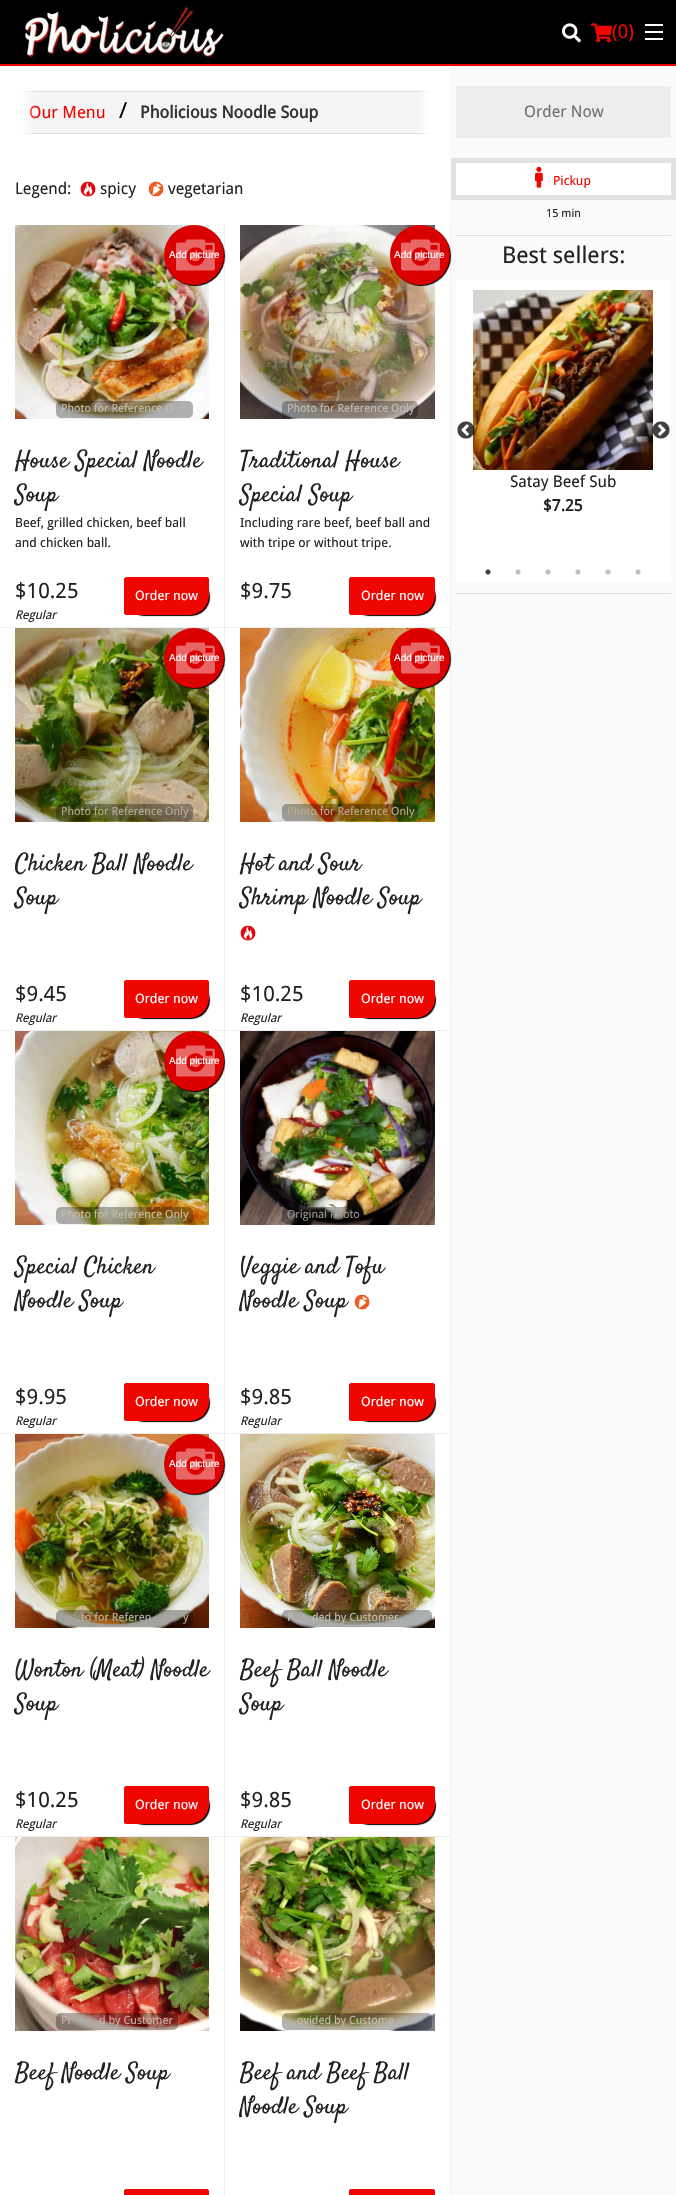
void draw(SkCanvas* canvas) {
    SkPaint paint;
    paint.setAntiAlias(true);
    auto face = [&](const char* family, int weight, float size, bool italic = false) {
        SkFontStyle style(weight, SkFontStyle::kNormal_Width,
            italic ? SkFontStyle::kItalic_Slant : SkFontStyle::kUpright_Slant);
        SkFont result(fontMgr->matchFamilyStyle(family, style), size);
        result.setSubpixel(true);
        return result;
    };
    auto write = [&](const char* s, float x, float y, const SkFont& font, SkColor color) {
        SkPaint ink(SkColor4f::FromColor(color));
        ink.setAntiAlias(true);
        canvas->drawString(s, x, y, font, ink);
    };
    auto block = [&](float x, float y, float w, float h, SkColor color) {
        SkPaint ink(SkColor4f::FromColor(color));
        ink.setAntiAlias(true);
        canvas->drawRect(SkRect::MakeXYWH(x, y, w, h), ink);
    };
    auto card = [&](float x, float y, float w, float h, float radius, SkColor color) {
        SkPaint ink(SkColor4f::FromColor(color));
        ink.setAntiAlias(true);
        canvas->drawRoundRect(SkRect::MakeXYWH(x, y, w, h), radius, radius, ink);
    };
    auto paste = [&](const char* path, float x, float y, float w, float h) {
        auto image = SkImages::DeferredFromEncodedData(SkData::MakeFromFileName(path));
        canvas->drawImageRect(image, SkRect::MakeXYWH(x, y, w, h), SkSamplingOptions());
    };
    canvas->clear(SK_ColorWHITE);
    block(0, 0, 676, 64, SK_ColorBLACK);
    block(0, 64, 676, 2, SkColorSetRGB(239, 6, 1));
    paste("pic1.png", 23, 5, 206, 58);
    paste("pic2.png", 562, 23, 19, 20);
    paste("pic3.png", 591, 23, 22, 20);
    auto kFont1 = face("Droid Sans", 400, 19);
    write("(0)", 612, 38, kFont1, SkColorSetRGB(239, 6, 1));
    block(645, 38, 18, 2, SK_ColorWHITE);
    block(645, 31, 18, 2, SK_ColorWHITE);
    block(645, 24, 18, 2, SK_ColorWHITE);
    block(20, 92, 411, 41, SkColorSetRGB(245, 245, 245));
    paint.setStyle(SkPaint::kStroke_Style);
    paint.setStrokeWidth(1);
    paint.setColor(SkColorSetRGB(221, 221, 221));
    canvas->drawRect(SkRect::MakeXYWH(15.5f, 91.5f, 420, 42), paint);
    auto kFont2 = face("Droid Sans", 400, 16.75f);
    write("Our Menu", 29, 118, kFont2, SkColorSetRGB(239, 6, 1));
    paint.setStyle(SkPaint::kFill_Style);
    {
        const SkColor colors[] = {SkColorSetARGB(0, 255, 255, 255), SK_ColorWHITE, SK_ColorWHITE};
        const float stops[] = {0, 0.43f, 1};
        const SkPoint ends[] = {{35, 106}, {0, 106}};
        paint.setShader(SkGradientShader::MakeLinear(ends, colors, stops, 3, SkTileMode::kClamp));
        paint.setAlpha(255);
    }
    canvas->drawRect(SkRect::MakeXYWH(15, 91, 20, 43), paint);
    auto kFont3 = face("Droid Sans", 400, 22);
    write("/", 119, 118, kFont3, SK_ColorBLACK);
    auto kFont4 = face("Droid Sans", 700, 16.75f);
    write("Pholicious Noodle Soup", 140, 118, kFont4, SkColorSetRGB(51, 51, 51));
    {
        const SkColor colors[] = {SkColorSetARGB(0, 255, 255, 255), SK_ColorWHITE, SK_ColorWHITE};
        const float stops[] = {0, 0.43f, 1};
        const SkPoint ends[] = {{416, 106}, {451, 106}};
        paint.setShader(SkGradientShader::MakeLinear(ends, colors, stops, 3, SkTileMode::kClamp));
        paint.setAlpha(255);
    }
    canvas->drawRect(SkRect::MakeXYWH(417, 91, 19, 43), paint);
    auto kFont5 = face("Droid Sans", 400, 16);
    write("Legend:", 15, 194, kFont5, SkColorSetRGB(34, 34, 34));
    paste("pic4.png", 80, 181, 16, 16);
    write("spicy", 100, 194, kFont5, SkColorSetRGB(34, 34, 34));
    paste("pic5.png", 148, 181, 16, 16);
    write("vegetarian", 168, 194, kFont5, SkColorSetRGB(34, 34, 34));
    block(224, 225, 1, 1970, SkColorSetRGB(238, 238, 238));
    block(0, 627, 225, 1, SkColorSetRGB(238, 238, 238));
    paste("pic7.png", 15, 225, 194, 194);
    paint.setShader(nullptr);
    paint.setColor(SK_ColorBLACK);
    paint.setMaskFilter(SkMaskFilter::MakeBlur(kNormal_SkBlurStyle, 0.5f));
    canvas->drawRoundRect(SkRect::MakeXYWH(165, 226, 60, 60), 30, 30, paint);
    paint.setMaskFilter(nullptr);
    paint.setColor(SkColorSetRGB(218, 0, 0));
    canvas->drawCircle(194, 255, 30, paint);
    paste("pic6.png", 176, 239, 39, 32);
    auto kFont6 = face("Liberation Sans", 400, 10);
    write("Add picture", 169, 258, kFont6, SK_ColorWHITE);
    card(56, 401, 137, 17, 5, SkColorSetARGB(77, 0, 0, 0));
    auto kFont7 = face("Droid Sans", 400, 11.25f);
    write("Photo for Reference O", 61, 412, kFont7, SkColorSetRGB(195, 190, 177));
    auto kFont8 = face("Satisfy", 400, 24);
    write("House Special Noodle", 15, 467, kFont8, SkColorSetRGB(34, 34, 34));
    write("Soup", 15, 501, kFont8, SkColorSetRGB(34, 34, 34));
    auto kFont9 = face("Droid Sans", 400, 12.75f);
    write("Beef, grilled chicken, beef ball", 15, 527, kFont9, SkColorSetRGB(34, 34, 34));
    write("and chicken ball.", 15, 547, kFont9, SkColorSetRGB(34, 34, 34));
    auto kFont10 = face("Droid Sans", 400, 21);
    write("$10.25", 15, 598, kFont10, SkColorSetRGB(34, 34, 34));
    auto kFont11 = face("Droid Sans", 400, 12, true);
    write("Regular", 15, 619, kFont11, SkColorSetRGB(34, 34, 34));
    paint.setColor(SK_ColorBLACK);
    paint.setMaskFilter(SkMaskFilter::MakeBlur(kNormal_SkBlurStyle, 0.5f));
    canvas->drawRoundRect(SkRect::MakeXYWH(125, 578, 85, 38), 20, 20, paint);
    paint.setMaskFilter(nullptr);
    paint.setColor(SkColorSetRGB(239, 6, 1));
    canvas->drawPath(SkPathBuilder().moveTo(126, 577).lineTo(207, 577).cubicTo(208, 577, 209, 578, 209, 579).lineTo(209, 595).cubicTo(209, 606, 200, 615, 189, 615).lineTo(126, 615).cubicTo(125, 615, 124, 614, 124, 613).lineTo(124, 579).cubicTo(124, 578, 125, 577, 126, 577).close().detach(), paint);
    auto kFont12 = face("Droid Sans", 400, 13);
    write("Order now", 135, 600, kFont12, SK_ColorWHITE);
    block(450, 225, 1, 1970, SkColorSetRGB(238, 238, 238));
    block(225, 627, 226, 1, SkColorSetRGB(238, 238, 238));
    paste("pic8.png", 240, 225, 195, 194);
    block(451, 66, 225, 2129, SkColorSetRGB(250, 250, 250));
    paint.setColor(SK_ColorBLACK);
    paint.setMaskFilter(SkMaskFilter::MakeBlur(kNormal_SkBlurStyle, 0.5f));
    canvas->drawRoundRect(SkRect::MakeXYWH(391, 226, 60, 60), 30, 30, paint);
    paint.setMaskFilter(nullptr);
    paint.setColor(SkColorSetRGB(218, 0, 0));
    canvas->drawCircle(420, 255, 30, paint);
    paste("pic6.png", 401, 239, 39, 32);
    write("Add picture", 394, 258, kFont6, SK_ColorWHITE);
    card(282, 401, 136, 17, 5, SkColorSetARGB(77, 0, 0, 0));
    write("Photo for Reference Only", 287, 412, kFont7, SkColorSetRGB(194, 188, 183));
    write("Traditional House", 240, 467, kFont8, SkColorSetRGB(34, 34, 34));
    write("Special Soup", 240, 501, kFont8, SkColorSetRGB(34, 34, 34));
    write("Including rare beef, beef ball and", 240, 527, kFont9, SkColorSetRGB(34, 34, 34));
    write("with tripe or without tripe.", 240, 547, kFont9, SkColorSetRGB(34, 34, 34));
    write("$9.75", 240, 598, kFont10, SkColorSetRGB(34, 34, 34));
    paint.setColor(SK_ColorBLACK);
    paint.setMaskFilter(SkMaskFilter::MakeBlur(kNormal_SkBlurStyle, 0.5f));
    canvas->drawRoundRect(SkRect::MakeXYWH(350, 578, 86, 38), 20, 20, paint);
    paint.setMaskFilter(nullptr);
    paint.setColor(SkColorSetRGB(239, 6, 1));
    canvas->drawPath(SkPathBuilder().moveTo(351, 577).lineTo(433, 577).cubicTo(434, 577, 435, 578, 435, 579).lineTo(435, 595).cubicTo(435, 606, 426, 615, 415, 615).lineTo(351, 615).cubicTo(350, 615, 349, 614, 349, 613).lineTo(349, 579).cubicTo(349, 578, 350, 577, 351, 577).close().detach(), paint);
    write("Order now", 361, 600, kFont12, SK_ColorWHITE);
    block(0, 1030, 451, 1, SkColorSetRGB(238, 238, 238));
    paste("pic9.png", 15, 628, 194, 194);
    paint.setColor(SK_ColorBLACK);
    paint.setMaskFilter(SkMaskFilter::MakeBlur(kNormal_SkBlurStyle, 0.5f));
    canvas->drawRoundRect(SkRect::MakeXYWH(165, 629, 60, 60), 30, 30, paint);
    paint.setMaskFilter(nullptr);
    paint.setColor(SkColorSetRGB(218, 0, 0));
    canvas->drawCircle(194, 658, 30, paint);
    paste("pic6.png", 176, 642, 39, 32);
    write("Add picture", 169, 661, kFont6, SK_ColorWHITE);
    card(56, 804, 137, 17, 5, SkColorSetARGB(77, 0, 0, 0));
    write("Photo for Reference Only", 61, 815, kFont7, SkColorSetRGB(176, 173, 153));
    write("Chicken Ball Noodle", 15, 870, kFont8, SkColorSetRGB(34, 34, 34));
    write("Soup", 15, 904, kFont8, SkColorSetRGB(34, 34, 34));
    write("$9.45", 15, 1001, kFont10, SkColorSetRGB(34, 34, 34));
    write("Regular", 15, 1022, kFont11, SkColorSetRGB(34, 34, 34));
    paint.setColor(SK_ColorBLACK);
    paint.setMaskFilter(SkMaskFilter::MakeBlur(kNormal_SkBlurStyle, 0.5f));
    canvas->drawRoundRect(SkRect::MakeXYWH(125, 981, 85, 38), 20, 20, paint);
    paint.setMaskFilter(nullptr);
    paint.setColor(SkColorSetRGB(239, 6, 1));
    canvas->drawPath(SkPathBuilder().moveTo(126, 980).lineTo(207, 980).cubicTo(208, 980, 209, 981, 209, 982).lineTo(209, 998).cubicTo(209, 1009, 200, 1018, 189, 1018).lineTo(126, 1018).cubicTo(125, 1018, 124, 1017, 124, 1016).lineTo(124, 982).cubicTo(124, 981, 125, 980, 126, 980).close().detach(), paint);
    write("Order now", 135, 1003, kFont12, SK_ColorWHITE);
    paste("pic10.png", 240, 628, 195, 194);
    paint.setColor(SK_ColorBLACK);
    paint.setMaskFilter(SkMaskFilter::MakeBlur(kNormal_SkBlurStyle, 0.5f));
    canvas->drawRoundRect(SkRect::MakeXYWH(391, 629, 60, 60), 30, 30, paint);
    paint.setMaskFilter(nullptr);
    paint.setColor(SkColorSetRGB(218, 0, 0));
    canvas->drawCircle(420, 658, 30, paint);
    paste("pic6.png", 401, 642, 39, 32);
    write("Add picture", 394, 661, kFont6, SK_ColorWHITE);
    card(282, 804, 136, 17, 5, SkColorSetARGB(77, 0, 0, 0));
    write("Photo for Reference Only", 287, 815, kFont7, SkColorSetRGB(188, 171, 145));
    write("Hot and Sour", 240, 870, kFont8, SkColorSetRGB(34, 34, 34));
    write("Shrimp Noodle Soup", 240, 904, kFont8, SkColorSetRGB(34, 34, 34));
    paste("pic4.png", 240, 925, 16, 16);
    write("$10.25", 240, 1001, kFont10, SkColorSetRGB(34, 34, 34));
    write("Regular", 240, 1022, kFont11, SkColorSetRGB(34, 34, 34));
    paint.setColor(SK_ColorBLACK);
    paint.setMaskFilter(SkMaskFilter::MakeBlur(kNormal_SkBlurStyle, 0.5f));
    canvas->drawRoundRect(SkRect::MakeXYWH(350, 981, 86, 38), 20, 20, paint);
    paint.setMaskFilter(nullptr);
    paint.setColor(SkColorSetRGB(239, 6, 1));
    canvas->drawPath(SkPathBuilder().moveTo(351, 980).lineTo(433, 980).cubicTo(434, 980, 435, 981, 435, 982).lineTo(435, 998).cubicTo(435, 1009, 426, 1018, 415, 1018).lineTo(351, 1018).cubicTo(350, 1018, 349, 1017, 349, 1016).lineTo(349, 982).cubicTo(349, 981, 350, 980, 351, 980).close().detach(), paint);
    write("Order now", 361, 1003, kFont12, SK_ColorWHITE);
    block(0, 1433, 451, 1, SkColorSetRGB(238, 238, 238));
    paste("pic11.png", 15, 1031, 194, 194);
    paint.setColor(SK_ColorBLACK);
    paint.setMaskFilter(SkMaskFilter::MakeBlur(kNormal_SkBlurStyle, 0.5f));
    canvas->drawRoundRect(SkRect::MakeXYWH(165, 1032, 60, 60), 30, 30, paint);
    paint.setMaskFilter(nullptr);
    paint.setColor(SkColorSetRGB(218, 0, 0));
    canvas->drawCircle(194, 1061, 30, paint);
    paste("pic6.png", 176, 1045, 39, 32);
    write("Add picture", 169, 1064, kFont6, SK_ColorWHITE);
    card(56, 1207, 137, 17, 5, SkColorSetARGB(77, 0, 0, 0));
    write("Photo for Reference Only", 61, 1218, kFont7, SkColorSetRGB(198, 189, 166));
    write("Special Chicken", 15, 1273, kFont8, SkColorSetRGB(34, 34, 34));
    write("Noodle Soup", 15, 1307, kFont8, SkColorSetRGB(34, 34, 34));
    write("$9.95", 15, 1404, kFont10, SkColorSetRGB(34, 34, 34));
    write("Regular", 15, 1425, kFont11, SkColorSetRGB(34, 34, 34));
    paint.setColor(SK_ColorBLACK);
    paint.setMaskFilter(SkMaskFilter::MakeBlur(kNormal_SkBlurStyle, 0.5f));
    canvas->drawRoundRect(SkRect::MakeXYWH(125, 1384, 85, 38), 20, 20, paint);
    paint.setMaskFilter(nullptr);
    paint.setColor(SkColorSetRGB(239, 6, 1));
    canvas->drawPath(SkPathBuilder().moveTo(126, 1383).lineTo(207, 1383).cubicTo(208, 1383, 209, 1384, 209, 1385).lineTo(209, 1401).cubicTo(209, 1412, 200, 1421, 189, 1421).lineTo(126, 1421).cubicTo(125, 1421, 124, 1420, 124, 1419).lineTo(124, 1385).cubicTo(124, 1384, 125, 1383, 126, 1383).close().detach(), paint);
    write("Order now", 135, 1406, kFont12, SK_ColorWHITE);
    paste("pic12.png", 240, 1031, 195, 194);
    card(282, 1207, 82, 17, 5, SkColorSetARGB(77, 0, 0, 0));
    write("Original Photo", 287, 1218, kFont7, SkColorSetRGB(150, 149, 148));
    write("Veggie and Tofu", 240, 1273, kFont8, SkColorSetRGB(34, 34, 34));
    write("Noodle Soup", 240, 1307, kFont8, SkColorSetRGB(34, 34, 34));
    paste("pic5.png", 354, 1294, 16, 16);
    write("$9.85", 240, 1404, kFont10, SkColorSetRGB(34, 34, 34));
    write("Regular", 240, 1425, kFont11, SkColorSetRGB(34, 34, 34));
    paint.setColor(SK_ColorBLACK);
    paint.setMaskFilter(SkMaskFilter::MakeBlur(kNormal_SkBlurStyle, 0.5f));
    canvas->drawRoundRect(SkRect::MakeXYWH(350, 1384, 86, 38), 20, 20, paint);
    paint.setMaskFilter(nullptr);
    paint.setColor(SkColorSetRGB(239, 6, 1));
    canvas->drawPath(SkPathBuilder().moveTo(351, 1383).lineTo(433, 1383).cubicTo(434, 1383, 435, 1384, 435, 1385).lineTo(435, 1401).cubicTo(435, 1412, 426, 1421, 415, 1421).lineTo(351, 1421).cubicTo(350, 1421, 349, 1420, 349, 1419).lineTo(349, 1385).cubicTo(349, 1384, 350, 1383, 351, 1383).close().detach(), paint);
    write("Order now", 361, 1406, kFont12, SK_ColorWHITE);
    block(0, 1836, 451, 1, SkColorSetRGB(238, 238, 238));
    paste("pic13.png", 15, 1434, 194, 194);
    paint.setColor(SK_ColorBLACK);
    paint.setMaskFilter(SkMaskFilter::MakeBlur(kNormal_SkBlurStyle, 0.5f));
    canvas->drawRoundRect(SkRect::MakeXYWH(165, 1435, 60, 60), 30, 30, paint);
    paint.setMaskFilter(nullptr);
    paint.setColor(SkColorSetRGB(218, 0, 0));
    canvas->drawCircle(194, 1464, 30, paint);
    paste("pic6.png", 176, 1448, 39, 32);
    write("Add picture", 169, 1467, kFont6, SK_ColorWHITE);
    card(56, 1610, 137, 17, 5, SkColorSetARGB(77, 0, 0, 0));
    write("to for Referen", 81, 1621, kFont7, SkColorSetRGB(182, 176, 163));
    write("y", 183, 1621, kFont7, SkColorSetRGB(182, 176, 163));
    write("Wonton (Meat) Noodle", 15, 1676, kFont8, SkColorSetRGB(34, 34, 34));
    write("Soup", 15, 1710, kFont8, SkColorSetRGB(34, 34, 34));
    write("$10.25", 15, 1807, kFont10, SkColorSetRGB(34, 34, 34));
    write("Regular", 15, 1828, kFont11, SkColorSetRGB(34, 34, 34));
    paint.setColor(SK_ColorBLACK);
    paint.setMaskFilter(SkMaskFilter::MakeBlur(kNormal_SkBlurStyle, 0.5f));
    canvas->drawRoundRect(SkRect::MakeXYWH(125, 1787, 85, 38), 20, 20, paint);
    paint.setMaskFilter(nullptr);
    paint.setColor(SkColorSetRGB(239, 6, 1));
    canvas->drawPath(SkPathBuilder().moveTo(126, 1786).lineTo(207, 1786).cubicTo(208, 1786, 209, 1787, 209, 1788).lineTo(209, 1804).cubicTo(209, 1815, 200, 1824, 189, 1824).lineTo(126, 1824).cubicTo(125, 1824, 124, 1823, 124, 1822).lineTo(124, 1788).cubicTo(124, 1787, 125, 1786, 126, 1786).close().detach(), paint);
    write("Order now", 135, 1809, kFont12, SK_ColorWHITE);
    paste("pic14.png", 240, 1434, 195, 194);
    card(282, 1610, 150, 17, 5, SkColorSetARGB(77, 0, 0, 0));
    write("P", 287, 1621, kFont7, SkColorSetRGB(195, 190, 177));
    write("ded by Customer", 312, 1621, kFont7, SkColorSetRGB(195, 190, 177));
    write("Beef Ball Noodle", 240, 1676, kFont8, SkColorSetRGB(34, 34, 34));
    write("Soup", 240, 1710, kFont8, SkColorSetRGB(34, 34, 34));
    write("$9.85", 240, 1807, kFont10, SkColorSetRGB(34, 34, 34));
    write("Regular", 240, 1828, kFont11, SkColorSetRGB(34, 34, 34));
    paint.setColor(SK_ColorBLACK);
    paint.setMaskFilter(SkMaskFilter::MakeBlur(kNormal_SkBlurStyle, 0.5f));
    canvas->drawRoundRect(SkRect::MakeXYWH(350, 1787, 86, 38), 20, 20, paint);
    paint.setMaskFilter(nullptr);
    paint.setColor(SkColorSetRGB(239, 6, 1));
    canvas->drawPath(SkPathBuilder().moveTo(351, 1786).lineTo(433, 1786).cubicTo(434, 1786, 435, 1787, 435, 1788).lineTo(435, 1804).cubicTo(435, 1815, 426, 1824, 415, 1824).lineTo(351, 1824).cubicTo(350, 1824, 349, 1823, 349, 1822).lineTo(349, 1788).cubicTo(349, 1787, 350, 1786, 351, 1786).close().detach(), paint);
    write("Order now", 361, 1809, kFont12, SK_ColorWHITE);
    paste("pic15.png", 15, 1837, 194, 194);
    card(56, 2013, 122, 17, 5, SkColorSetARGB(77, 0, 0, 0));
    write("Pr", 61, 2024, kFont7, SkColorSetRGB(202, 175, 170));
    write("d by Customer", 99, 2024, kFont7, SkColorSetRGB(202, 175, 170));
    write("Beef Noodle Soup", 15, 2079, kFont8, SkColorSetRGB(34, 34, 34));
    canvas->drawPath(SkPathBuilder().moveTo(126, 2189).lineTo(207, 2189).cubicTo(208, 2189, 209, 2190, 209, 2191).lineTo(209, 2195).cubicTo(209, 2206, 200, 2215, 189, 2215).lineTo(126, 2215).cubicTo(125, 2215, 124, 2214, 124, 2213).lineTo(124, 2191).cubicTo(124, 2190, 125, 2189, 126, 2189).close().detach(), paint);
    paste("pic16.png", 240, 1837, 195, 194);
    card(282, 2013, 150, 17, 5, SkColorSetARGB(77, 0, 0, 0));
    write("ovided by Custome", 297, 2024, kFont7, SkColorSetRGB(195, 190, 177));
    write("Beef and Beef Ball", 240, 2079, kFont8, SkColorSetRGB(34, 34, 34));
    write("Noodle Soup", 240, 2113, kFont8, SkColorSetRGB(34, 34, 34));
    canvas->drawPath(SkPathBuilder().moveTo(351, 2189).lineTo(433, 2189).cubicTo(434, 2189, 435, 2190, 435, 2191).lineTo(435, 2195).cubicTo(435, 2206, 426, 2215, 415, 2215).lineTo(351, 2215).cubicTo(350, 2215, 349, 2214, 349, 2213).lineTo(349, 2191).cubicTo(349, 2190, 350, 2189, 351, 2189).close().detach(), paint);
    block(456, 86, 215, 52, SkColorSetRGB(237, 237, 237));
    write("Order Now", 524, 117, kFont5, SkColorSetRGB(111, 111, 111));
    block(451, 158, 225, 42, SkColorSetRGB(225, 225, 225));
    block(456, 163, 215, 32, SK_ColorWHITE);
    paste("pic17.png", 535, 166, 8, 22);
    write("Pickup", 553, 185, kFont9, SkColorSetRGB(239, 6, 1));
    write("15 min", 546, 217, kFont7, SkColorSetRGB(34, 34, 34));
    block(456, 235, 215, 1, SkColorSetRGB(221, 221, 221));
    auto kFont13 = face("Droid Sans", 400, 23);
    write("Best sellers:", 502, 263, kFont13, SkColorSetRGB(34, 34, 34));
    block(456, 280, 215, 302, SK_ColorWHITE);
    paste("pic20.png", 473, 290, 180, 180);
    paste("pic18.png", 457, 421, 18, 18);
    paste("pic19.png", 652, 421, 18, 18);
    write("Satay Beef Sub", 510, 487, kFont5, SkColorSetRGB(34, 34, 34));
    auto kFont14 = face("Droid Sans", 700, 16);
    write("$7.25", 543, 511, kFont14, SkColorSetRGB(34, 34, 34));
    paste("pic21.png", 485, 569, 6, 6);
    paste("pic22.png", 515, 569, 6, 6);
    paste("pic22.png", 545, 569, 6, 6);
    paste("pic22.png", 575, 569, 6, 6);
    paste("pic22.png", 605, 569, 6, 6);
    paste("pic22.png", 635, 569, 6, 6);
    block(456, 593, 215, 1, SkColorSetRGB(221, 221, 221));
}
